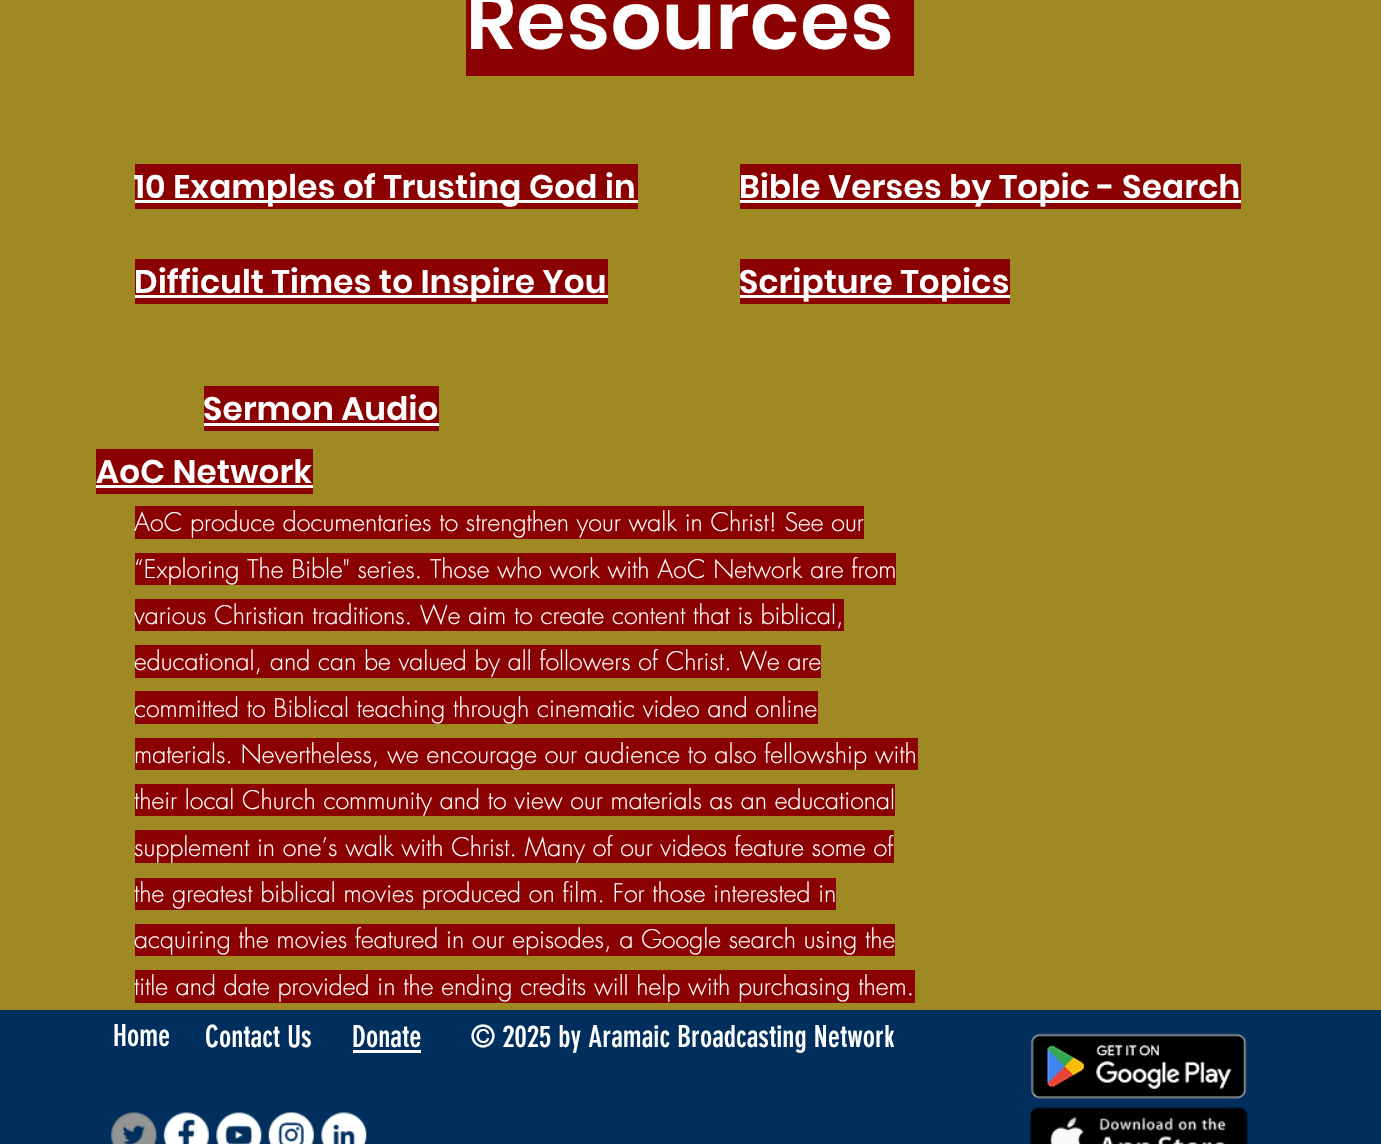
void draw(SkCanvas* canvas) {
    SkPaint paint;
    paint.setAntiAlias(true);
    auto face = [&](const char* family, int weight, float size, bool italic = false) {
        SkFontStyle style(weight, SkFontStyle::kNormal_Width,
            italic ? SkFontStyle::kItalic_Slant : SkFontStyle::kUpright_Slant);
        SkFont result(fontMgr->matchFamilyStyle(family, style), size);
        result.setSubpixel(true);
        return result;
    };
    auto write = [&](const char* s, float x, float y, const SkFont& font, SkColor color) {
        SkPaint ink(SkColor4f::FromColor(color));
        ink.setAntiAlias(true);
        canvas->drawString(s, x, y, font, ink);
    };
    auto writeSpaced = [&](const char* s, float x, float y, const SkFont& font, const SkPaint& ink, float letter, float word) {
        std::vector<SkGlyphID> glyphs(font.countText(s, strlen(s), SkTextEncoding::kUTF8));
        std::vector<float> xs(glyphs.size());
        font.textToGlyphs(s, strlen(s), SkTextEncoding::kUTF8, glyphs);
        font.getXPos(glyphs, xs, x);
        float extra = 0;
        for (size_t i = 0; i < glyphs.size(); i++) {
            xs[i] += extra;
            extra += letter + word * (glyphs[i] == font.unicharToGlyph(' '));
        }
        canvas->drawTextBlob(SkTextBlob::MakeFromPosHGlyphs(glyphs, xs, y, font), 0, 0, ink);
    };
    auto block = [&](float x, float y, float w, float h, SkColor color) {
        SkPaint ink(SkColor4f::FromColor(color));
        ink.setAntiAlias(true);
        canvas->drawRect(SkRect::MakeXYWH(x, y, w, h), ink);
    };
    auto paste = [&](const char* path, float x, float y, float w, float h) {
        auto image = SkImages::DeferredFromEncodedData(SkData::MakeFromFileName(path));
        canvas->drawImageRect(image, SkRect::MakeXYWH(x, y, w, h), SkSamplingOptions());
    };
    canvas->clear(SkColorSetRGB(158, 137, 34));
    block(466, 0, 448, 76, SkColorSetRGB(139, 0, 0));
    auto kFont1 = face("Poppins", 600, 80);
    paint.setColor(SK_ColorWHITE);
    writeSpaced("Resources", 466, 49, kFont1, paint, 0.75f, 0);
    block(135, 164, 503, 45, SkColorSetRGB(139, 0, 0));
    block(135, 200, 503, 3, SkColorSetRGB(250, 250, 250));
    auto kFont2 = face("Poppins", 600, 32.5f);
    writeSpaced("10 Examples of Trusting God in", 134, 198, kFont2, paint, 0.3f, 0);
    block(135, 259, 473, 45, SkColorSetRGB(139, 0, 0));
    block(135, 295, 473, 3, SkColorSetRGB(250, 250, 250));
    writeSpaced("Difficult Times to Inspire You", 134, 293, kFont2, paint, 0.3f, 0);
    block(740, 164, 501, 45, SkColorSetRGB(139, 0, 0));
    block(740, 200, 501, 3, SkColorSetRGB(250, 250, 250));
    writeSpaced("Bible Verses by Topic - Search", 739, 198, kFont2, paint, 0.3f, 0);
    block(740, 259, 270, 45, SkColorSetRGB(139, 0, 0));
    block(740, 295, 270, 3, SkColorSetRGB(250, 250, 250));
    writeSpaced("Scripture Topics", 739, 293, kFont2, paint, 0.3f, 0);
    block(204, 386, 235, 45, SkColorSetRGB(139, 0, 0));
    writeSpaced("Sermon Audio", 203, 420, kFont2, paint, 0.3f, 0);
    block(204, 423, 235, 3, SkColorSetRGB(250, 250, 250));
    block(96, 449, 217, 45, SkColorSetRGB(139, 0, 0));
    writeSpaced("AoC Network", 96, 483, kFont2, paint, 0.3f, 0);
    block(96, 485, 217, 3, SkColorSetRGB(250, 250, 250));
    block(135, 506, 729, 33, SkColorSetRGB(139, 0, 0));
    auto kFont3 = face("futura", 300, 25);
    write("AoC produce documentaries to strengthen your walk in Christ! See our", 134, 531, kFont3, SK_ColorWHITE);
    block(135, 553, 761, 32, SkColorSetRGB(139, 0, 0));
    write("“Exploring The Bible\" series. Those who work with AoC Network are from", 134, 578, kFont3, SK_ColorWHITE);
    block(135, 599, 709, 32, SkColorSetRGB(139, 0, 0));
    write("various Christian traditions. We aim to create content that is biblical,", 134, 624, kFont3, SK_ColorWHITE);
    block(135, 645, 686, 33, SkColorSetRGB(139, 0, 0));
    write("educational, and can be valued by all followers of Christ. We are", 134, 670, kFont3, SK_ColorWHITE);
    block(135, 691, 683, 33, SkColorSetRGB(139, 0, 0));
    write("committed to Biblical teaching through cinematic video and online", 134, 717, kFont3, SK_ColorWHITE);
    block(135, 738, 783, 32, SkColorSetRGB(139, 0, 0));
    write("materials. Nevertheless, we encourage our audience to also fellowship with", 134, 763, kFont3, SK_ColorWHITE);
    block(135, 784, 760, 32, SkColorSetRGB(139, 0, 0));
    write("their local Church community and to view our materials as an educational", 134, 809, kFont3, SK_ColorWHITE);
    block(135, 830, 759, 33, SkColorSetRGB(139, 0, 0));
    write("supplement in one’s walk with Christ. Many of our videos feature some of", 134, 856, kFont3, SK_ColorWHITE);
    block(135, 878, 701, 32, SkColorSetRGB(139, 0, 0));
    write("the greatest biblical movies produced on film. For those interested in", 134, 902, kFont3, SK_ColorWHITE);
    block(135, 924, 760, 32, SkColorSetRGB(139, 0, 0));
    write("acquiring the movies featured in our episodes, a Google search using the", 134, 948, kFont3, SK_ColorWHITE);
    block(135, 970, 780, 33, SkColorSetRGB(139, 0, 0));
    write("title and date provided in the ending credits will help with purchasing them.", 134, 995, kFont3, SK_ColorWHITE);
    block(0, 1010, 1381, 134, SkColorSetRGB(0, 46, 93));
    auto kFont4 = face("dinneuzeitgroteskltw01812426", 400, 30);
    write("Home", 113, 1046, kFont4, SK_ColorWHITE);
    write("Contact Us", 205, 1047, kFont4, SK_ColorWHITE);
    write("Donate", 352, 1047, kFont4, SK_ColorWHITE);
    block(353, 1050, 68, 3, SK_ColorWHITE);
    write("© 2025 by Aramaic Broadcasting Network", 471, 1047, kFont4, SK_ColorWHITE);
    paste("pic1.png", 1031, 1033, 216, 66);
    paste("pic3.png", 1033, 1114, 212, 23);
    paste("pic4.png", 1033, 1117, 212, 27);
    paste("pic2.png", 1030, 1107, 218, 37);
    paste("pic5.png", 111, 1112, 46, 32);
    paste("pic6.png", 163, 1112, 46, 32);
    paste("pic7.png", 216, 1112, 46, 32);
    paste("pic8.png", 268, 1112, 46, 32);
    paste("pic9.png", 321, 1112, 46, 32);
}
